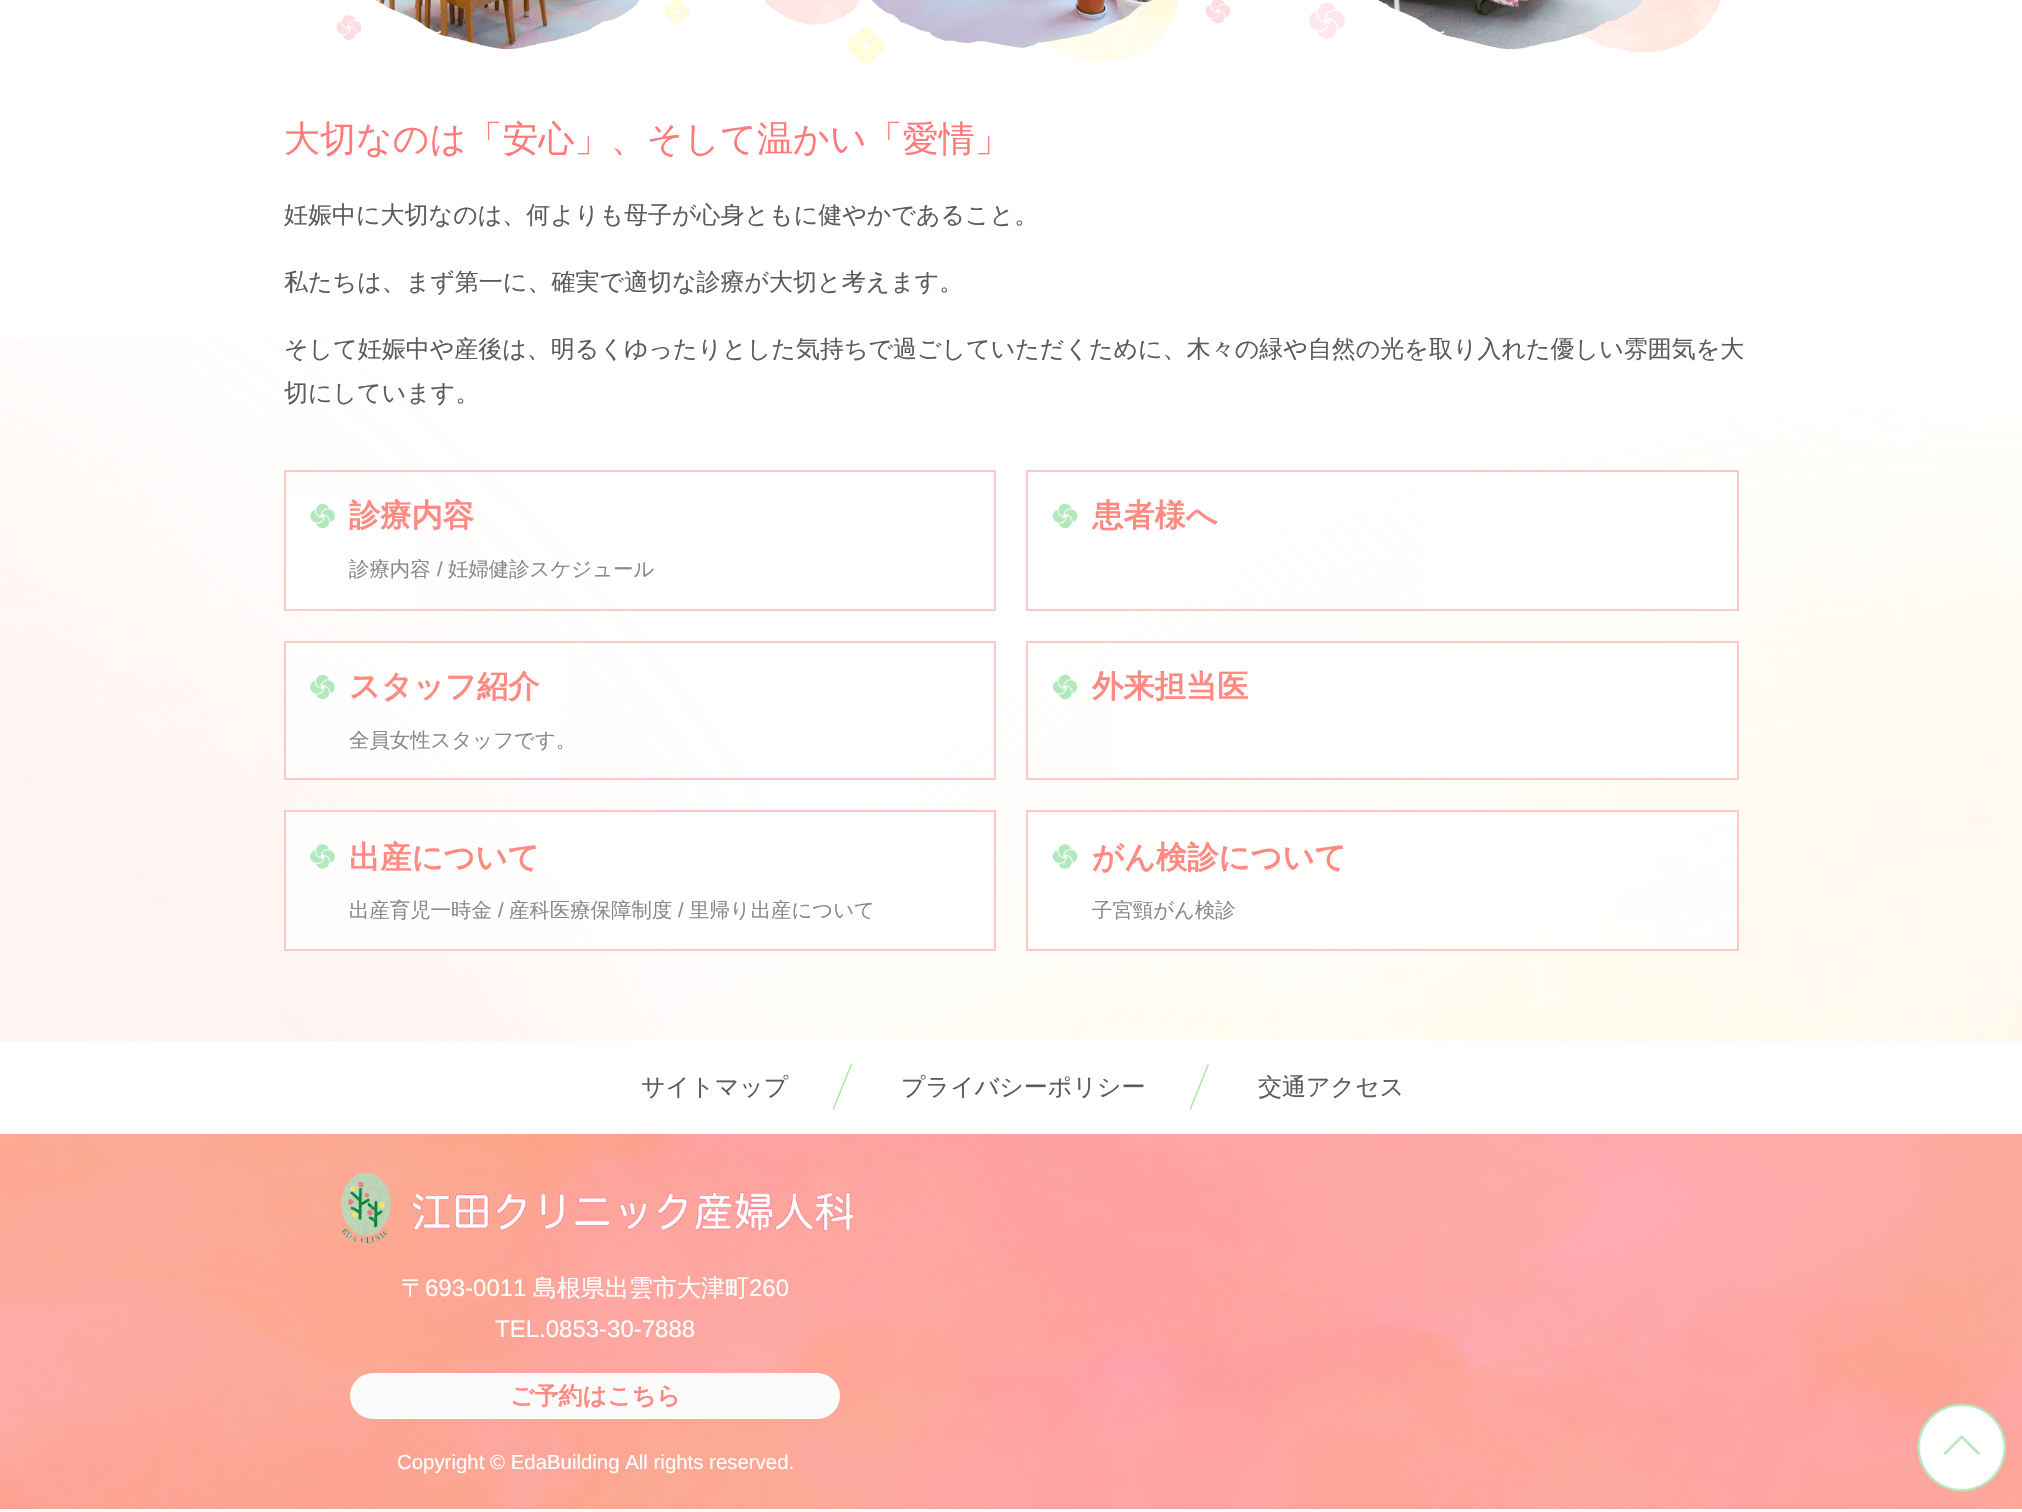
void draw(SkCanvas* canvas) {
    SkPaint paint;
    paint.setAntiAlias(true);
    auto face = [&](const char* family, int weight, float size, bool italic = false) {
        SkFontStyle style(weight, SkFontStyle::kNormal_Width,
            italic ? SkFontStyle::kItalic_Slant : SkFontStyle::kUpright_Slant);
        SkFont result(fontMgr->matchFamilyStyle(family, style), size);
        result.setSubpixel(true);
        return result;
    };
    auto write = [&](const char* s, float x, float y, const SkFont& font, SkColor color) {
        SkPaint ink(SkColor4f::FromColor(color));
        ink.setAntiAlias(true);
        canvas->drawString(s, x, y, font, ink);
    };
    auto block = [&](float x, float y, float w, float h, SkColor color) {
        SkPaint ink(SkColor4f::FromColor(color));
        ink.setAntiAlias(true);
        canvas->drawRect(SkRect::MakeXYWH(x, y, w, h), ink);
    };
    auto card = [&](float x, float y, float w, float h, float radius, SkColor color) {
        SkPaint ink(SkColor4f::FromColor(color));
        ink.setAntiAlias(true);
        canvas->drawRoundRect(SkRect::MakeXYWH(x, y, w, h), radius, radius, ink);
    };
    auto paste = [&](const char* path, float x, float y, float w, float h) {
        auto image = SkImages::DeferredFromEncodedData(SkData::MakeFromFileName(path));
        canvas->drawImageRect(image, SkRect::MakeXYWH(x, y, w, h), SkSamplingOptions());
    };
    canvas->clear(SK_ColorWHITE);
    paste("pic1.png", 0, 337, 2022, 704);
    paste("pic2.png", 336, 0, 1384, 64);
    auto kFont1 = face("WenQuanYi Zen Hei", 500, 36);
    write("大切なのは「安心」、そして温かい「愛情」", 284, 151, kFont1, SkColorSetRGB(255, 123, 123));
    auto kFont2 = face("WenQuanYi Zen Hei", 500, 24);
    write("妊娠中に大切なのは、何よりも母子が心身ともに健やかであること。", 284, 223, kFont2, SkColorSetRGB(91, 91, 91));
    write("私たちは、まず第一に、確実で適切な診療が大切と考えます。", 284, 290, kFont2, SkColorSetRGB(91, 91, 91));
    write("そして妊娠中や産後は、明るくゆったりとした気持ちで過ごしていただくために、木々の緑や自然の光を取り入れた優しい雰囲気を大", 284, 357, kFont2, SkColorSetRGB(91, 91, 91));
    write("切にしています。", 284, 401, kFont2, SkColorSetRGB(91, 91, 91));
    block(286, 497, 132, 112, SkColorSetARGB(204, 255, 255, 255));
    paint.setStyle(SkPaint::kStroke_Style);
    paint.setStrokeWidth(2);
    paint.setColor(SkColorSetRGB(255, 200, 199));
    canvas->drawRect(SkRect::MakeXYWH(285, 471, 710, 139), paint);
    paste("pic3.png", 310, 503, 26, 26);
    auto kFont3 = face("WenQuanYi Zen Hei", 700, 31.25f);
    write("診療内容", 349, 526, kFont3, SkColorSetRGB(255, 138, 129));
    auto kFont4 = face("WenQuanYi Zen Hei", 500, 20.4f);
    write("診療内容", 349, 576, kFont4, SkColorSetRGB(138, 138, 138));
    auto kFont5 = face("Liberation Sans", 400, 20.4f);
    write("/", 437, 576, kFont5, SkColorSetRGB(138, 138, 138));
    write("妊婦健診スケジュール", 448, 576, kFont4, SkColorSetRGB(138, 138, 138));
    block(1422, 472, 315, 137, SkColorSetARGB(204, 255, 255, 255));
    canvas->drawRect(SkRect::MakeXYWH(1027, 471, 711, 139), paint);
    paste("pic4.png", 1052, 503, 26, 26);
    write("患者様へ", 1092, 526, kFont3, SkColorSetRGB(255, 138, 129));
    block(286, 643, 279, 135, SkColorSetARGB(204, 255, 255, 255));
    canvas->drawRect(SkRect::MakeXYWH(285, 642, 710, 137), paint);
    paste("pic5.png", 310, 674, 26, 26);
    write("スタッフ紹介", 349, 697, kFont3, SkColorSetRGB(255, 138, 129));
    write("全員女性スタッフです。", 349, 747, kFont4, SkColorSetRGB(138, 138, 138));
    block(1114, 643, 623, 135, SkColorSetARGB(204, 255, 255, 255));
    canvas->drawRect(SkRect::MakeXYWH(1027, 642, 711, 137), paint);
    paste("pic4.png", 1052, 674, 26, 26);
    write("外来担当医", 1092, 697, kFont3, SkColorSetRGB(255, 138, 129));
    paint.setStyle(SkPaint::kFill_Style);
    paint.setColor(SkColorSetARGB(204, 255, 255, 255));
    canvas->drawRect(SkRect::MakeXYWH(285, 811, 710, 139), paint);
    paint.setStyle(SkPaint::kStroke_Style);
    paint.setColor(SkColorSetRGB(255, 200, 199));
    canvas->drawRect(SkRect::MakeXYWH(285, 811, 710, 139), paint);
    paste("pic6.png", 310, 844, 26, 26);
    write("出産について", 349, 868, kFont3, SkColorSetRGB(255, 138, 129));
    write("出産育児一時金", 349, 917, kFont4, SkColorSetRGB(138, 138, 138));
    write("/", 498, 917, kFont5, SkColorSetRGB(138, 138, 138));
    write("産科医療保障制度", 509, 917, kFont4, SkColorSetRGB(138, 138, 138));
    write("/", 678, 917, kFont5, SkColorSetRGB(138, 138, 138));
    write("里帰り出産について", 689, 917, kFont4, SkColorSetRGB(138, 138, 138));
    paint.setStyle(SkPaint::kFill_Style);
    paint.setColor(SkColorSetARGB(204, 255, 255, 255));
    canvas->drawRect(SkRect::MakeXYWH(1027, 811, 711, 139), paint);
    paint.setStyle(SkPaint::kStroke_Style);
    paint.setColor(SkColorSetRGB(255, 200, 199));
    canvas->drawRect(SkRect::MakeXYWH(1027, 811, 711, 139), paint);
    paste("pic7.png", 1052, 844, 26, 26);
    write("がん検診について", 1092, 868, kFont3, SkColorSetRGB(255, 138, 129));
    write("子宮頸がん検診", 1092, 917, kFont4, SkColorSetRGB(138, 138, 138));
    block(0, 1134, 2022, 375, SkColorSetRGB(255, 143, 155));
    paste("pic8.png", 0, 1134, 2022, 375);
    write("サイトマップ", 641, 1095, kFont2, SkColorSetRGB(91, 91, 91));
    paste("pic9.png", 832, 1064, 20, 46);
    write("プライバシーポリシー", 901, 1095, kFont2, SkColorSetRGB(91, 91, 91));
    paste("pic9.png", 1189, 1064, 20, 46);
    write("交通アクセス", 1258, 1095, kFont2, SkColorSetRGB(91, 91, 91));
    paste("pic10.png", 341, 1172, 514, 71);
    write("〒", 401, 1296, kFont2, SK_ColorWHITE);
    auto kFont6 = face("Liberation Sans", 400, 24);
    write("693-0011", 425, 1296, kFont6, SK_ColorWHITE);
    write("島根県出雲市大津町", 533, 1296, kFont2, SK_ColorWHITE);
    write("260", 749, 1296, kFont6, SK_ColorWHITE);
    write("TEL.0853-30-7888", 495, 1337, kFont6, SK_ColorWHITE);
    card(350, 1373, 490, 46, 23, SkColorSetRGB(251, 251, 251));
    auto kFont7 = face("WenQuanYi Zen Hei", 700, 24);
    write("ご予約はこちら", 510, 1404, kFont7, SkColorSetRGB(255, 138, 129));
    write("Copyright © EdaBuilding All rights reserved.", 397, 1469, kFont5, SK_ColorWHITE);
    paste("pic11.png", 1917, 1403, 89, 89);
}
